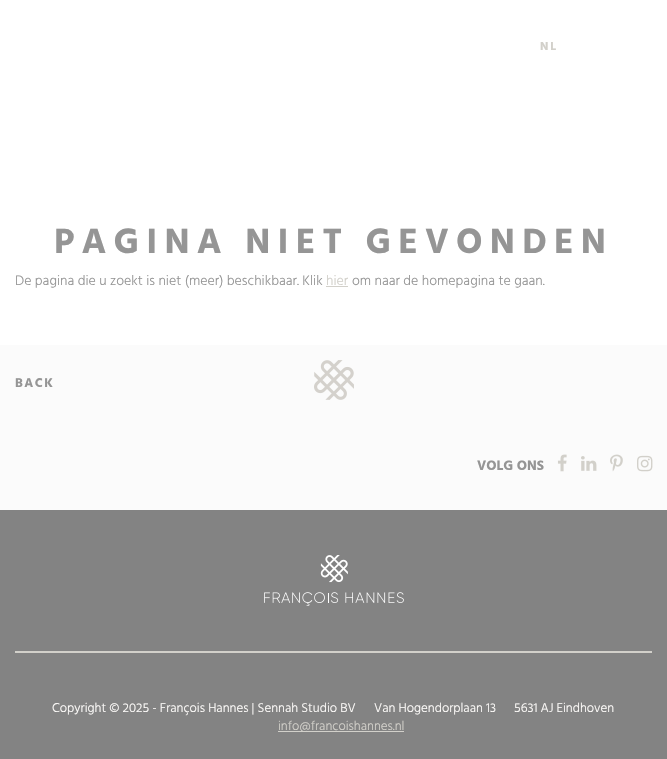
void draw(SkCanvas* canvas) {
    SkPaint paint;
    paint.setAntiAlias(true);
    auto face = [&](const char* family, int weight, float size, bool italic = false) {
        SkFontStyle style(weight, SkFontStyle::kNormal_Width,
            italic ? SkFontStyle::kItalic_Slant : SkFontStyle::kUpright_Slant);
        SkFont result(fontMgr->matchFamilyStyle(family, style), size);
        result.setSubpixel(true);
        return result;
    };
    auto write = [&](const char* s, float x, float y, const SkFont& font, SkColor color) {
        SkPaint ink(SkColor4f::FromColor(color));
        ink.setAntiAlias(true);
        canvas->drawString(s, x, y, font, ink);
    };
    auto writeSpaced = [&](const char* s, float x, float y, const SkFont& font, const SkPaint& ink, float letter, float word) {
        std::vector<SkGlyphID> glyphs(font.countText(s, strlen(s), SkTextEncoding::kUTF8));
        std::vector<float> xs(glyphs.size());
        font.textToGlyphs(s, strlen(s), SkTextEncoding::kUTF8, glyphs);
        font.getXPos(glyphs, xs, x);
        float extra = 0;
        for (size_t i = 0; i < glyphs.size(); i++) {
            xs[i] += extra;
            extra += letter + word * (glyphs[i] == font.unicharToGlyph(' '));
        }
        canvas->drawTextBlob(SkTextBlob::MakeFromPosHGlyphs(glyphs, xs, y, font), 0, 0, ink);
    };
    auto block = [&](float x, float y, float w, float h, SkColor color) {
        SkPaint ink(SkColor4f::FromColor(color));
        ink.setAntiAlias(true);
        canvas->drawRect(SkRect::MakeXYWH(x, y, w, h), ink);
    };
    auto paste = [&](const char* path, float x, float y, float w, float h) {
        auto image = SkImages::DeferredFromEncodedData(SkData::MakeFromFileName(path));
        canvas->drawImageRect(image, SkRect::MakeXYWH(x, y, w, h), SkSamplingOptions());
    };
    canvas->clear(SK_ColorWHITE);
    auto kFont1 = face("Hind Vadodara", 700, 12);
    paint.setColor(SkColorSetRGB(210, 208, 202));
    writeSpaced("NL", 540, 50, kFont1, paint, 2, 0);
    auto kFont2 = face("Hind Vadodara", 700, 36);
    paint.setColor(SkColorSetRGB(149, 149, 149));
    writeSpaced("PAGINA NIET GEVONDEN", 54, 253, kFont2, paint, 7.25f, 0);
    auto kFont3 = face("Hind Vadodara", 300, 14);
    write("De pagina die u zoekt is niet (meer) beschikbaar. Klik", 15, 285, kFont3, SkColorSetRGB(149, 149, 149));
    write("hier", 326, 285, kFont3, SkColorSetRGB(210, 208, 202));
    block(326, 286, 22, 1, SkColorSetRGB(210, 208, 202));
    write("om naar de homepagina te gaan.", 352, 285, kFont3, SkColorSetRGB(149, 149, 149));
    block(0, 345, 667, 165, SkColorSetRGB(251, 251, 251));
    paste("pic1.png", 314, 360, 40, 40);
    auto kFont4 = face("Hind Vadodara", 700, 13);
    writeSpaced("BACK", 15, 387, kFont4, paint, 1.5f, 0);
    auto kFont5 = face("Hind Vadodara", 700, 14);
    write("VOLG ONS", 477, 470, kFont5, SkColorSetRGB(149, 149, 149));
    paste("pic2.png", 557, 454, 10, 18);
    paste("pic3.png", 581, 456, 16, 15);
    paste("pic4.png", 610, 454, 13, 18);
    paste("pic5.png", 637, 455, 16, 17);
    block(0, 510, 667, 249, SkColorSetRGB(131, 131, 131));
    paste("pic6.png", 264, 555, 140, 51);
    block(15, 651, 637, 2, SkColorSetRGB(210, 208, 202));
    auto kFont6 = face("Hind Vadodara", 300, 13);
    write("Copyright © 2025 - François Hannes | Sennah Studio BV", 52, 712, kFont6, SkColorSetRGB(254, 252, 250));
    write("Van Hogendorplaan 13", 374, 712, kFont6, SkColorSetRGB(254, 252, 250));
    write("5631 AJ Eindhoven", 514, 712, kFont6, SkColorSetRGB(254, 252, 250));
    block(278, 731, 126, 1, SkColorSetRGB(210, 208, 202));
    write("info@francoishannes.nl", 278, 730, kFont6, SkColorSetRGB(210, 208, 202));
}
